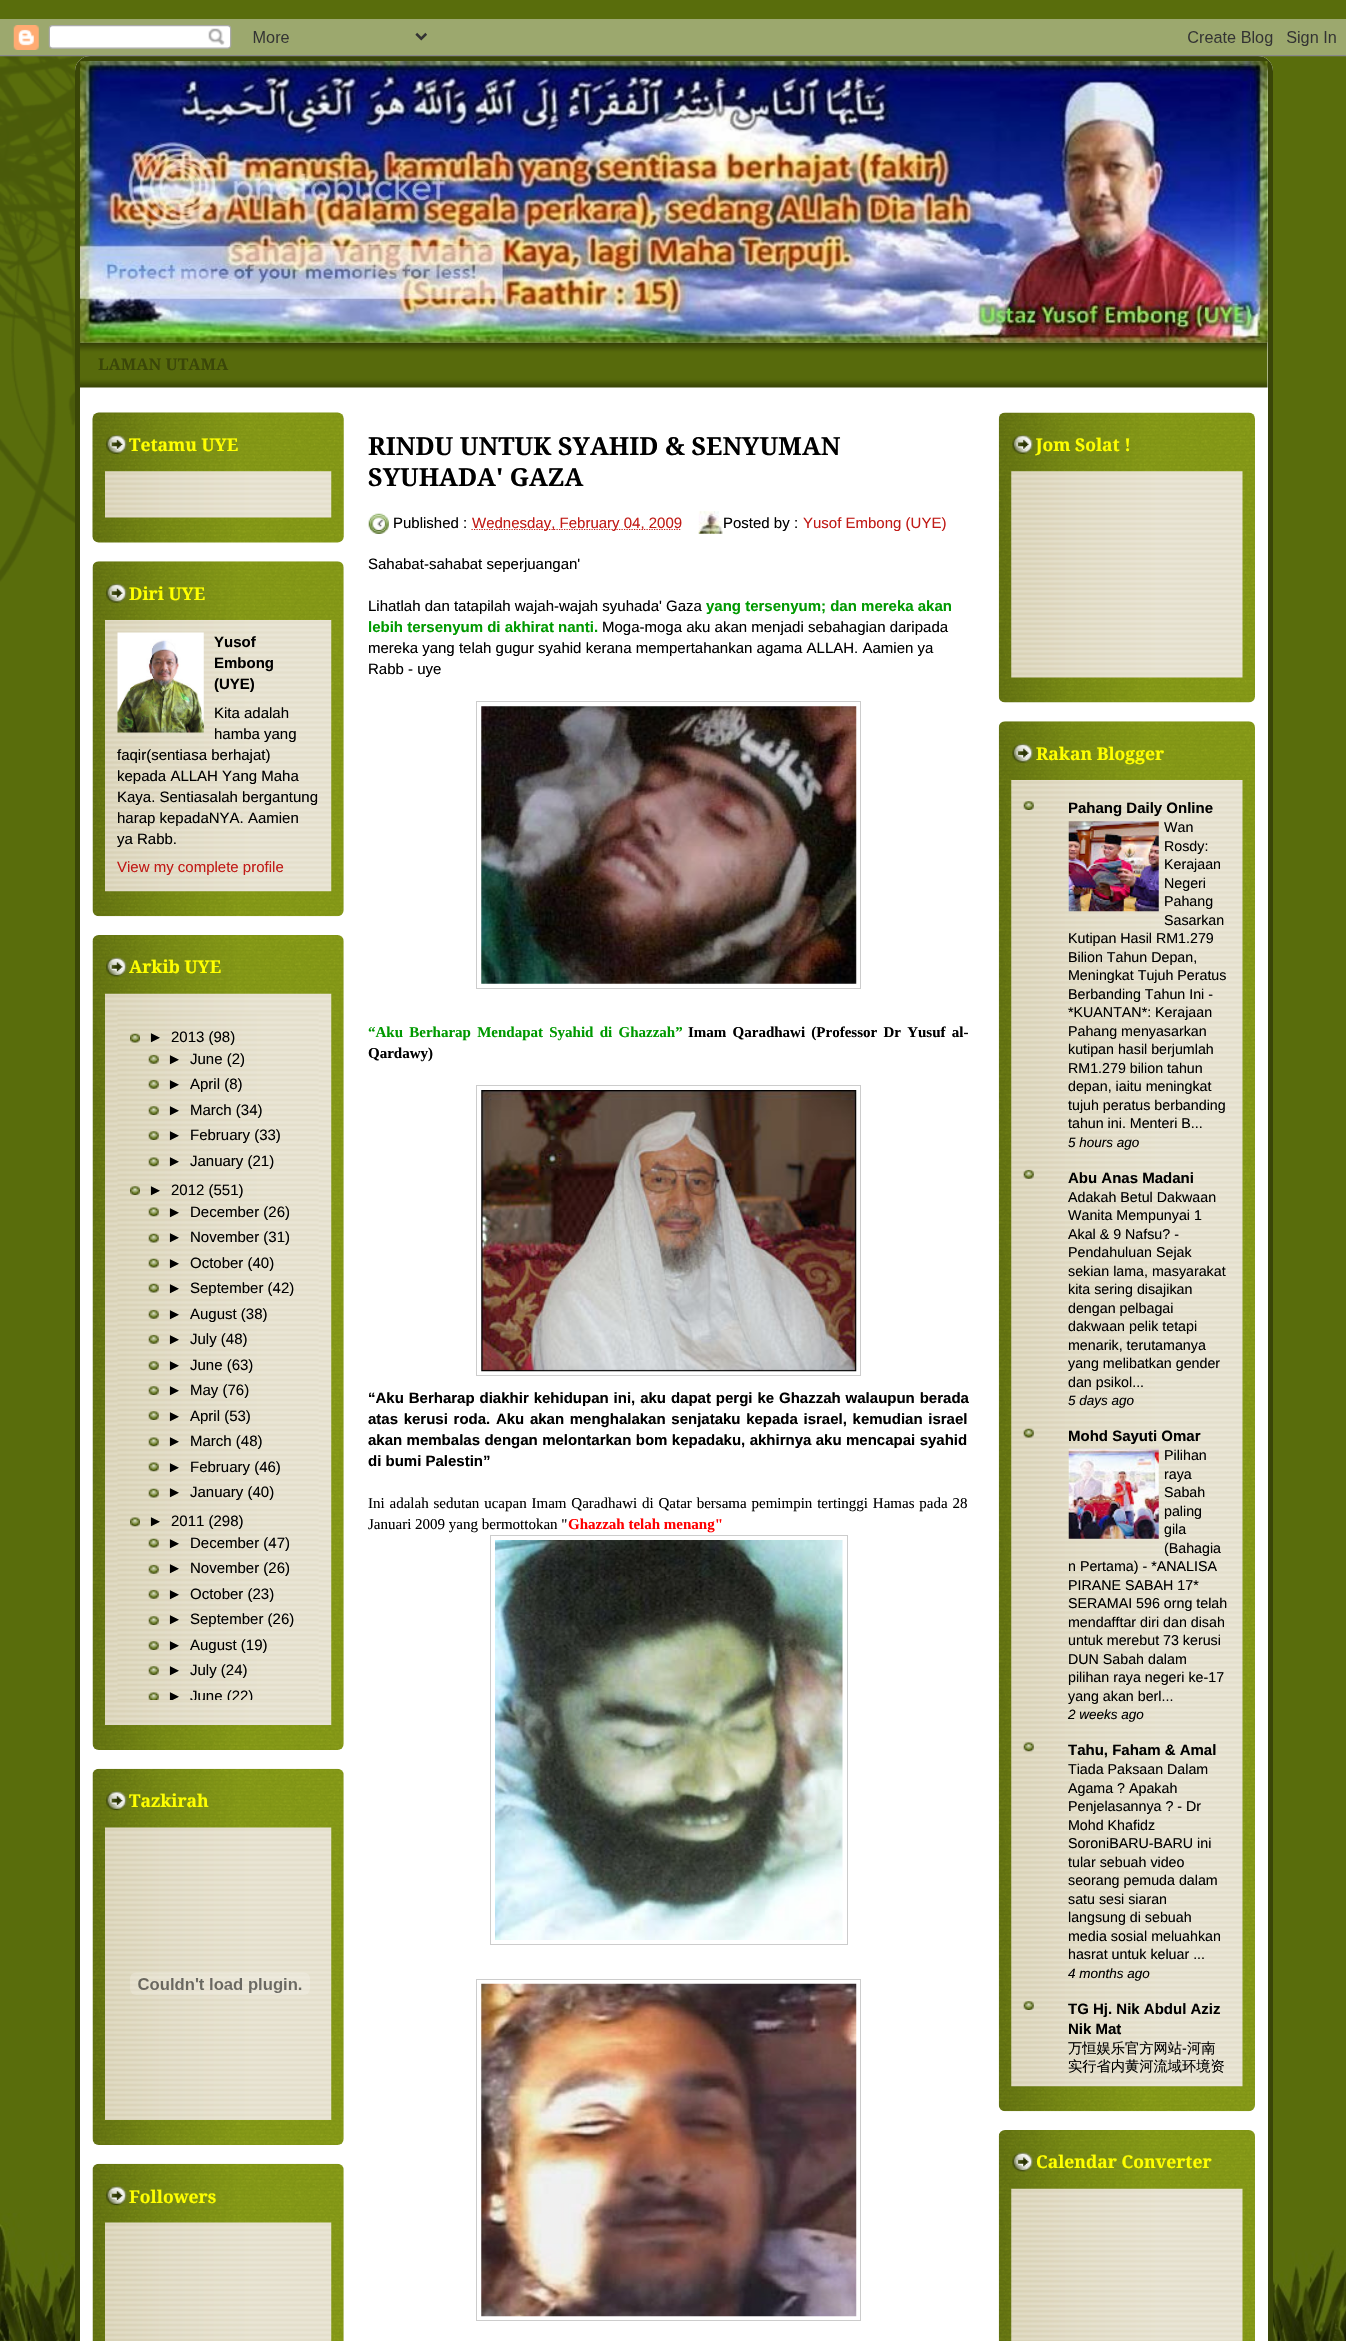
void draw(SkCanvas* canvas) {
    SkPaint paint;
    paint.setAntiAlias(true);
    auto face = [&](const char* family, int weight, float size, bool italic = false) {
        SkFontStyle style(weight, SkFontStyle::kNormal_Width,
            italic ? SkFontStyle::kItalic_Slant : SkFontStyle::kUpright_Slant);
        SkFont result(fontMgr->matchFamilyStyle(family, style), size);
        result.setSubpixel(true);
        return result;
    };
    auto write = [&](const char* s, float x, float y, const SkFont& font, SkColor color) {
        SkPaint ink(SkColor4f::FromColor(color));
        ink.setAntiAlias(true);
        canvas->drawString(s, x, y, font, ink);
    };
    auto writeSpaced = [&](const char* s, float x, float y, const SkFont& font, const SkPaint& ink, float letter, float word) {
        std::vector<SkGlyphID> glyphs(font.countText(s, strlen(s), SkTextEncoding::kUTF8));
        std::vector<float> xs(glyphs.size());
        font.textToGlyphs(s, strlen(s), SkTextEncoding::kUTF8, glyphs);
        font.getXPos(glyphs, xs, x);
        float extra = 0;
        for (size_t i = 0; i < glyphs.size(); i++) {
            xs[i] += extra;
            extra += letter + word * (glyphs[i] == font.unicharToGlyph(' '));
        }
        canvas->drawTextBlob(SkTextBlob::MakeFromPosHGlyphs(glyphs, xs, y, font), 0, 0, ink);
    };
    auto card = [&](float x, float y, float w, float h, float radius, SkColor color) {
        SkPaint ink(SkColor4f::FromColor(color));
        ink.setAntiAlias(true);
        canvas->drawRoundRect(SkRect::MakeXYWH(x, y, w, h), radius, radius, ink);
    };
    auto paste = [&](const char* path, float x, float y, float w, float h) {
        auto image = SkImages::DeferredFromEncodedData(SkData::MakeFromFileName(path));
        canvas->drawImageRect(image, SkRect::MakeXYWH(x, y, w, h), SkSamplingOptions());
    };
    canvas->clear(SkColorSetRGB(89, 109, 12));
    paste("pic1.png", 0, 2213, 1346, 128);
    paste("pic3.png", 0, 56, 90, 526);
    card(75, 56, 1198, 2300, 15, SK_ColorWHITE);
    paste("pic4.png", 80, 61, 1188, 282);
    paint.setStyle(SkPaint::kStroke_Style);
    paint.setStrokeWidth(5);
    paint.setColor(SkColorSetRGB(58, 70, 8));
    canvas->drawRoundRect(SkRect::MakeXYWH(77.5f, 58.5f, 1193, 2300), 12.5f, 12.5f, paint);
    paste("pic2.png", 0, 19, 1346, 38);
    paste("pic6.png", 80, 342, 1188, 46);
    paste("pic5.png", 80, 61, 1188, 282);
    auto kFont1 = face("Droid Serif", 700, 16.25f);
    write("LAMAN UTAMA", 98, 370, kFont1, SkColorSetRGB(58, 70, 8));
    paste("pic7.png", 92, 412, 252, 131);
    paste("pic8.png", 106, 435, 21, 19);
    auto kFont2 = face("Droid Serif", 700, 17.5f);
    write("Tetamu UYE", 129, 451, kFont2, SkColorSetRGB(255, 255, 0));
    paste("pic9.png", 105, 471, 227, 47);
    paste("pic10.png", 92, 561, 252, 356);
    paste("pic11.png", 106, 583, 21, 20);
    write("Diri UYE", 129, 600, kFont2, SkColorSetRGB(255, 255, 0));
    paste("pic12.png", 105, 620, 227, 272);
    paste("pic13.png", 117, 632, 87, 101);
    auto kFont3 = face("Liberation Sans", 700, 15);
    write("Yusof", 214, 647, kFont3, SK_ColorBLACK);
    write("Embong", 214, 668, kFont3, SK_ColorBLACK);
    write("(UYE)", 214, 689, kFont3, SK_ColorBLACK);
    auto kFont4 = face("Liberation Sans", 400, 15);
    write("Kita adalah", 214, 718, kFont4, SK_ColorBLACK);
    write("hamba yang", 214, 739, kFont4, SK_ColorBLACK);
    write("faqir(sentiasa berhajat)", 117, 760, kFont4, SK_ColorBLACK);
    write("kepada ALLAH Yang Maha", 117, 781, kFont4, SK_ColorBLACK);
    write("Kaya. Sentiasalah bergantung", 117, 802, kFont4, SK_ColorBLACK);
    write("harap kepadaNYA. Aamien", 117, 823, kFont4, SK_ColorBLACK);
    write("ya Rabb.", 117, 844, kFont4, SK_ColorBLACK);
    write("View my complete profile", 117, 872, kFont4, SkColorSetRGB(193, 27, 23));
    paste("pic14.png", 92, 935, 252, 815);
    paste("pic15.png", 106, 957, 21, 20);
    write("Arkib UYE", 129, 973, kFont2, SkColorSetRGB(255, 255, 0));
    paste("pic16.png", 105, 993, 227, 732);
    paste("pic17.png", 117, 1013, 202, 687);
    paste("pic18.png", 130, 1033, 10, 10);
    write("►", 148, 1042, kFont4, SK_ColorBLACK);
    write("2013 (98)", 171, 1042, kFont4, SK_ColorBLACK);
    paste("pic19.png", 148, 1054, 11, 10);
    write("►", 167, 1064, kFont4, SK_ColorBLACK);
    write("June (2)", 190, 1064, kFont4, SK_ColorBLACK);
    paste("pic19.png", 148, 1079, 11, 10);
    write("►", 167, 1089, kFont4, SK_ColorBLACK);
    write("April (8)", 190, 1089, kFont4, SK_ColorBLACK);
    paste("pic20.png", 148, 1106, 11, 9);
    write("►", 167, 1115, kFont4, SK_ColorBLACK);
    write("March (34)", 190, 1115, kFont4, SK_ColorBLACK);
    paste("pic20.png", 148, 1131, 11, 9);
    write("►", 167, 1140, kFont4, SK_ColorBLACK);
    write("February (33)", 190, 1140, kFont4, SK_ColorBLACK);
    paste("pic21.png", 148, 1157, 11, 10);
    write("►", 167, 1166, kFont4, SK_ColorBLACK);
    write("January (21)", 190, 1166, kFont4, SK_ColorBLACK);
    paste("pic22.png", 130, 1186, 10, 9);
    write("►", 148, 1195, kFont4, SK_ColorBLACK);
    write("2012 (551)", 171, 1195, kFont4, SK_ColorBLACK);
    paste("pic21.png", 148, 1207, 11, 10);
    write("►", 167, 1217, kFont4, SK_ColorBLACK);
    write("December (26)", 190, 1217, kFont4, SK_ColorBLACK);
    paste("pic23.png", 148, 1233, 11, 10);
    write("►", 167, 1242, kFont4, SK_ColorBLACK);
    write("November (31)", 190, 1242, kFont4, SK_ColorBLACK);
    paste("pic23.png", 148, 1258, 11, 10);
    write("►", 167, 1268, kFont4, SK_ColorBLACK);
    write("October (40)", 190, 1268, kFont4, SK_ColorBLACK);
    paste("pic23.png", 148, 1283, 11, 10);
    write("►", 167, 1293, kFont4, SK_ColorBLACK);
    write("September (42)", 190, 1293, kFont4, SK_ColorBLACK);
    paste("pic19.png", 148, 1309, 11, 10);
    write("►", 167, 1319, kFont4, SK_ColorBLACK);
    write("August (38)", 190, 1319, kFont4, SK_ColorBLACK);
    paste("pic19.png", 148, 1334, 11, 10);
    write("►", 167, 1344, kFont4, SK_ColorBLACK);
    write("July (48)", 190, 1344, kFont4, SK_ColorBLACK);
    paste("pic20.png", 148, 1361, 11, 9);
    write("►", 167, 1370, kFont4, SK_ColorBLACK);
    write("June (63)", 190, 1370, kFont4, SK_ColorBLACK);
    paste("pic20.png", 148, 1386, 11, 9);
    write("►", 167, 1395, kFont4, SK_ColorBLACK);
    write("May (76)", 190, 1395, kFont4, SK_ColorBLACK);
    paste("pic20.png", 148, 1411, 11, 9);
    write("►", 167, 1421, kFont4, SK_ColorBLACK);
    write("April (53)", 190, 1421, kFont4, SK_ColorBLACK);
    paste("pic21.png", 148, 1437, 11, 10);
    write("►", 167, 1446, kFont4, SK_ColorBLACK);
    write("March (48)", 190, 1446, kFont4, SK_ColorBLACK);
    paste("pic21.png", 148, 1462, 11, 10);
    write("►", 167, 1472, kFont4, SK_ColorBLACK);
    write("February (46)", 190, 1472, kFont4, SK_ColorBLACK);
    paste("pic23.png", 148, 1488, 11, 10);
    write("►", 167, 1497, kFont4, SK_ColorBLACK);
    write("January (40)", 190, 1497, kFont4, SK_ColorBLACK);
    paste("pic24.png", 130, 1517, 10, 10);
    write("►", 148, 1526, kFont4, SK_ColorBLACK);
    write("2011 (298)", 171, 1526, kFont4, SK_ColorBLACK);
    paste("pic23.png", 148, 1538, 11, 10);
    write("►", 167, 1548, kFont4, SK_ColorBLACK);
    write("December (47)", 190, 1548, kFont4, SK_ColorBLACK);
    paste("pic25.png", 148, 1564, 11, 10);
    write("►", 167, 1573, kFont4, SK_ColorBLACK);
    write("November (26)", 190, 1573, kFont4, SK_ColorBLACK);
    paste("pic19.png", 148, 1589, 11, 10);
    write("►", 167, 1599, kFont4, SK_ColorBLACK);
    write("October (23)", 190, 1599, kFont4, SK_ColorBLACK);
    paste("pic20.png", 148, 1616, 11, 9);
    write("►", 167, 1624, kFont4, SK_ColorBLACK);
    write("September (26)", 190, 1624, kFont4, SK_ColorBLACK);
    paste("pic20.png", 148, 1641, 11, 9);
    write("►", 167, 1650, kFont4, SK_ColorBLACK);
    write("August (19)", 190, 1650, kFont4, SK_ColorBLACK);
    paste("pic20.png", 148, 1666, 11, 9);
    write("►", 167, 1675, kFont4, SK_ColorBLACK);
    write("July (24)", 190, 1675, kFont4, SK_ColorBLACK);
    paste("pic26.png", 148, 1692, 11, 8);
    canvas->save();
    canvas->clipRect(SkRect::MakeXYWH(118, 1013, 201, 687));
    write("►", 167, 1701, kFont4, SK_ColorBLACK);
    write("June (22)", 190, 1701, kFont4, SK_ColorBLACK);
    canvas->restore();
    paste("pic27.png", 92, 1768, 252, 377);
    paste("pic28.png", 106, 1791, 21, 20);
    write("Tazkirah", 129, 1807, kFont2, SkColorSetRGB(255, 255, 0));
    paste("pic29.png", 105, 1827, 227, 293);
    paste("pic30.png", 130, 1972, 180, 23);
    paste("pic31.png", 92, 2163, 252, 178);
    paste("pic28.png", 106, 2186, 21, 20);
    write("Followers", 129, 2203, kFont2, SkColorSetRGB(255, 255, 0));
    paste("pic32.png", 105, 2222, 227, 119);
    auto kFont5 = face("Droid Serif", 700, 25);
    write("RINDU UNTUK SYAHID & SENYUMAN", 368, 455, kFont5, SK_ColorBLACK);
    write("SYUHADA' GAZA", 368, 486, kFont5, SK_ColorBLACK);
    paste("pic33.png", 368, 513, 21, 21);
    write("Published :", 393, 528, kFont4, SK_ColorBLACK);
    paint.setStrokeWidth(1.2f);
    paint.setColor(SkColorSetRGB(193, 27, 23));
    paint.setPathEffect(SkDashPathEffect::Make({{1.25f, 1.25f}}, 0));
    canvas->drawPath(SkPathBuilder().moveTo(471.5f, 529.5f).lineTo(681.5f, 529.5f).detach(), paint);
    paint.setPathEffect(nullptr);
    write("Wednesday, February 04, 2009", 472, 528, kFont4, SkColorSetRGB(193, 27, 23));
    paste("pic34.png", 698, 511, 25, 23);
    write("Posted by :", 723, 528, kFont4, SK_ColorBLACK);
    write("Yusof Embong (UYE)", 803, 528, kFont4, SkColorSetRGB(193, 27, 23));
    write("Sahabat-sahabat seperjuangan'", 368, 569, kFont4, SK_ColorBLACK);
    write("Lihatlah dan tatapilah wajah-wajah syuhada' Gaza", 368, 611, kFont4, SK_ColorBLACK);
    write("yang tersenyum; dan mereka akan", 706, 611, kFont3, SkColorSetRGB(0, 153, 0));
    write("lebih tersenyum di akhirat nanti.", 368, 632, kFont3, SkColorSetRGB(0, 153, 0));
    write("Moga-moga aku akan menjadi sebahagian daripada", 602, 632, kFont4, SK_ColorBLACK);
    write("mereka yang telah gugur syahid kerana mempertahankan agama ALLAH. Aamien ya", 368, 653, kFont4, SK_ColorBLACK);
    write("Rabb - uye", 368, 674, kFont4, SK_ColorBLACK);
    paint.setStrokeWidth(1);
    paint.setColor(SkColorSetRGB(204, 204, 204));
    canvas->drawRect(SkRect::MakeXYWH(476.5f, 701.5f, 384, 287), paint);
    paste("pic35.png", 481, 706, 376, 278);
    auto kFont6 = face("Liberation Serif", 700, 15);
    paint.setStyle(SkPaint::kFill_Style);
    paint.setColor(SkColorSetRGB(0, 153, 0));
    writeSpaced("“Aku Berharap Mendapat Syahid di Ghazzah”", 368, 1037, kFont6, paint, 0, 2.5f);
    paint.setColor(SK_ColorBLACK);
    writeSpaced("Imam Qaradhawi (Professor Dr Yusuf al-", 688, 1037, kFont6, paint, 0, 2.5f);
    write("Qardawy)", 368, 1058, kFont6, SK_ColorBLACK);
    paint.setStyle(SkPaint::kStroke_Style);
    paint.setColor(SkColorSetRGB(204, 204, 204));
    canvas->drawRect(SkRect::MakeXYWH(476.5f, 1085.5f, 384, 290), paint);
    paste("pic36.png", 481, 1090, 376, 282);
    paint.setStyle(SkPaint::kFill_Style);
    paint.setColor(SK_ColorBLACK);
    writeSpaced("“Aku Berharap diakhir kehidupan ini, aku dapat pergi ke Ghazzah walaupun berada", 368, 1403, kFont3, paint, 0, 0.75f);
    writeSpaced("atas kerusi roda. Aku akan menghalakan senjataku kepada israel, kemudian israel", 368, 1424, kFont3, paint, 0, 1.5f);
    writeSpaced("akan membalas dengan melontarkan bom kepadaku, akhirnya aku mencapai syahid", 368, 1445, kFont3, paint, 0, 0.25f);
    write("di bumi Palestin”", 368, 1466, kFont3, SK_ColorBLACK);
    auto kFont7 = face("Liberation Serif", 400, 15);
    writeSpaced("Ini adalah sedutan ucapan Imam Qaradhawi di Qatar bersama pemimpin tertinggi Hamas pada 28", 368, 1508, kFont7, paint, 0, 1.1f);
    write("Januari 2009 yang bermottokan \"", 368, 1529, kFont7, SK_ColorBLACK);
    write("Ghazzah telah menang\"", 568, 1529, kFont6, SkColorSetRGB(255, 0, 0));
    paint.setStyle(SkPaint::kStroke_Style);
    paint.setColor(SkColorSetRGB(204, 204, 204));
    canvas->drawRect(SkRect::MakeXYWH(490.5f, 1535.5f, 357, 409), paint);
    paste("pic37.png", 495, 1540, 348, 400);
    canvas->drawRect(SkRect::MakeXYWH(476.5f, 1979.5f, 384, 341), paint);
    paste("pic38.png", 481, 1983, 376, 334);
    paste("pic39.png", 998, 412, 257, 291);
    paste("pic40.png", 1012, 435, 21, 19);
    write("Jom Solat !", 1036, 451, kFont2, SkColorSetRGB(255, 255, 0));
    paste("pic41.png", 1011, 471, 232, 207);
    paste("pic42.png", 998, 721, 257, 1391);
    paste("pic43.png", 1012, 743, 21, 20);
    write("Rakan Blogger", 1036, 760, kFont2, SkColorSetRGB(255, 255, 0));
    paste("pic44.png", 1011, 780, 232, 1307);
    paste("pic45.png", 1023, 801, 11, 9);
    write("Pahang Daily Online", 1068, 813, kFont3, SK_ColorBLACK);
    paste("pic46.png", 1068, 821, 91, 91);
    auto kFont8 = face("Liberation Sans", 400, 14.25f);
    write("Wan", 1164, 832, kFont8, SK_ColorBLACK);
    write("Rosdy:", 1164, 851, kFont8, SK_ColorBLACK);
    write("Kerajaan", 1164, 869, kFont8, SK_ColorBLACK);
    write("Negeri", 1164, 888, kFont8, SK_ColorBLACK);
    write("Pahang", 1164, 906, kFont8, SK_ColorBLACK);
    write("Sasarkan", 1164, 925, kFont8, SK_ColorBLACK);
    write("Kutipan Hasil RM1.279", 1068, 943, kFont8, SK_ColorBLACK);
    write("Bilion Tahun Depan,", 1068, 962, kFont8, SK_ColorBLACK);
    write("Meningkat Tujuh Peratus", 1068, 980, kFont8, SK_ColorBLACK);
    write("Berbanding Tahun Ini -", 1068, 999, kFont8, SK_ColorBLACK);
    write("*KUANTAN*: Kerajaan", 1068, 1017, kFont8, SK_ColorBLACK);
    write("Pahang menyasarkan", 1068, 1036, kFont8, SK_ColorBLACK);
    write("kutipan hasil berjumlah", 1068, 1054, kFont8, SK_ColorBLACK);
    write("RM1.279 bilion tahun", 1068, 1073, kFont8, SK_ColorBLACK);
    write("depan, iaitu meningkat", 1068, 1091, kFont8, SK_ColorBLACK);
    write("tujuh peratus berbanding", 1068, 1110, kFont8, SK_ColorBLACK);
    write("tahun ini. Menteri B...", 1068, 1128, kFont8, SK_ColorBLACK);
    auto kFont9 = face("Liberation Sans", 400, 13.5f, true);
    write("5 hours ago", 1068, 1147, kFont9, SK_ColorBLACK);
    paste("pic47.png", 1023, 1169, 11, 10);
    write("Abu Anas Madani", 1068, 1183, kFont3, SK_ColorBLACK);
    write("Adakah Betul Dakwaan", 1068, 1202, kFont8, SK_ColorBLACK);
    write("Wanita Mempunyai 1", 1068, 1220, kFont8, SK_ColorBLACK);
    write("Akal & 9 Nafsu? -", 1068, 1239, kFont8, SK_ColorBLACK);
    write("Pendahuluan Sejak", 1068, 1257, kFont8, SK_ColorBLACK);
    write("sekian lama, masyarakat", 1068, 1276, kFont8, SK_ColorBLACK);
    write("kita sering disajikan", 1068, 1294, kFont8, SK_ColorBLACK);
    write("dengan pelbagai", 1068, 1313, kFont8, SK_ColorBLACK);
    write("dakwaan pelik tetapi", 1068, 1331, kFont8, SK_ColorBLACK);
    write("menarik, terutamanya", 1068, 1350, kFont8, SK_ColorBLACK);
    write("yang melibatkan gender", 1068, 1368, kFont8, SK_ColorBLACK);
    write("dan psikol...", 1068, 1387, kFont8, SK_ColorBLACK);
    write("5 days ago", 1068, 1405, kFont9, SK_ColorBLACK);
    paste("pic48.png", 1023, 1428, 11, 10);
    write("Mohd Sayuti Omar", 1068, 1441, kFont3, SK_ColorBLACK);
    paste("pic49.png", 1068, 1448, 91, 91);
    write("Pilihan", 1164, 1460, kFont8, SK_ColorBLACK);
    write("raya", 1164, 1479, kFont8, SK_ColorBLACK);
    write("Sabah", 1164, 1497, kFont8, SK_ColorBLACK);
    write("paling", 1164, 1516, kFont8, SK_ColorBLACK);
    write("gila", 1164, 1534, kFont8, SK_ColorBLACK);
    write("(Bahagia", 1164, 1553, kFont8, SK_ColorBLACK);
    write("n Pertama) - *ANALISA", 1068, 1571, kFont8, SK_ColorBLACK);
    write("PIRANE SABAH 17*", 1068, 1590, kFont8, SK_ColorBLACK);
    write("SERAMAI 596 orng telah", 1068, 1608, kFont8, SK_ColorBLACK);
    write("mendafftar diri dan disah", 1068, 1627, kFont8, SK_ColorBLACK);
    write("untuk merebut 73 kerusi", 1068, 1645, kFont8, SK_ColorBLACK);
    write("DUN Sabah dalam", 1068, 1664, kFont8, SK_ColorBLACK);
    write("pilihan raya negeri ke-17", 1068, 1682, kFont8, SK_ColorBLACK);
    write("yang akan berl...", 1068, 1701, kFont8, SK_ColorBLACK);
    write("2 weeks ago", 1068, 1719, kFont9, SK_ColorBLACK);
    paste("pic50.png", 1023, 1742, 11, 10);
    write("Tahu, Faham & Amal", 1068, 1755, kFont3, SK_ColorBLACK);
    write("Tiada Paksaan Dalam", 1068, 1774, kFont8, SK_ColorBLACK);
    write("Agama ? Apakah", 1068, 1793, kFont8, SK_ColorBLACK);
    write("Penjelasannya ? - Dr", 1068, 1811, kFont8, SK_ColorBLACK);
    write("Mohd Khafidz", 1068, 1830, kFont8, SK_ColorBLACK);
    write("SoroniBARU-BARU ini", 1068, 1848, kFont8, SK_ColorBLACK);
    write("tular sebuah video", 1068, 1867, kFont8, SK_ColorBLACK);
    write("seorang pemuda dalam", 1068, 1885, kFont8, SK_ColorBLACK);
    write("satu sesi siaran", 1068, 1904, kFont8, SK_ColorBLACK);
    write("langsung di sebuah", 1068, 1922, kFont8, SK_ColorBLACK);
    write("media sosial meluahkan", 1068, 1941, kFont8, SK_ColorBLACK);
    write("hasrat untuk keluar ...", 1068, 1959, kFont8, SK_ColorBLACK);
    write("4 months ago", 1068, 1978, kFont9, SK_ColorBLACK);
    paste("pic45.png", 1023, 2001, 11, 9);
    write("TG Hj. Nik Abdul Aziz", 1068, 2014, kFont3, SK_ColorBLACK);
    write("Nik Mat", 1068, 2034, kFont3, SK_ColorBLACK);
    auto kFont10 = face("WenQuanYi Zen Hei", 500, 14.25f);
    write("万恒娱乐官方网站", 1068, 2053, kFont10, SK_ColorBLACK);
    write("-", 1182, 2053, kFont8, SK_ColorBLACK);
    write("河南", 1187, 2053, kFont10, SK_ColorBLACK);
    write("实行省内黄河流域环境资", 1068, 2071, kFont10, SK_ColorBLACK);
    paste("pic51.png", 998, 2130, 257, 211);
    paste("pic52.png", 1012, 2152, 21, 20);
    write("Calendar Converter", 1036, 2168, kFont2, SkColorSetRGB(255, 255, 0));
    paste("pic53.png", 1011, 2188, 232, 153);
}
